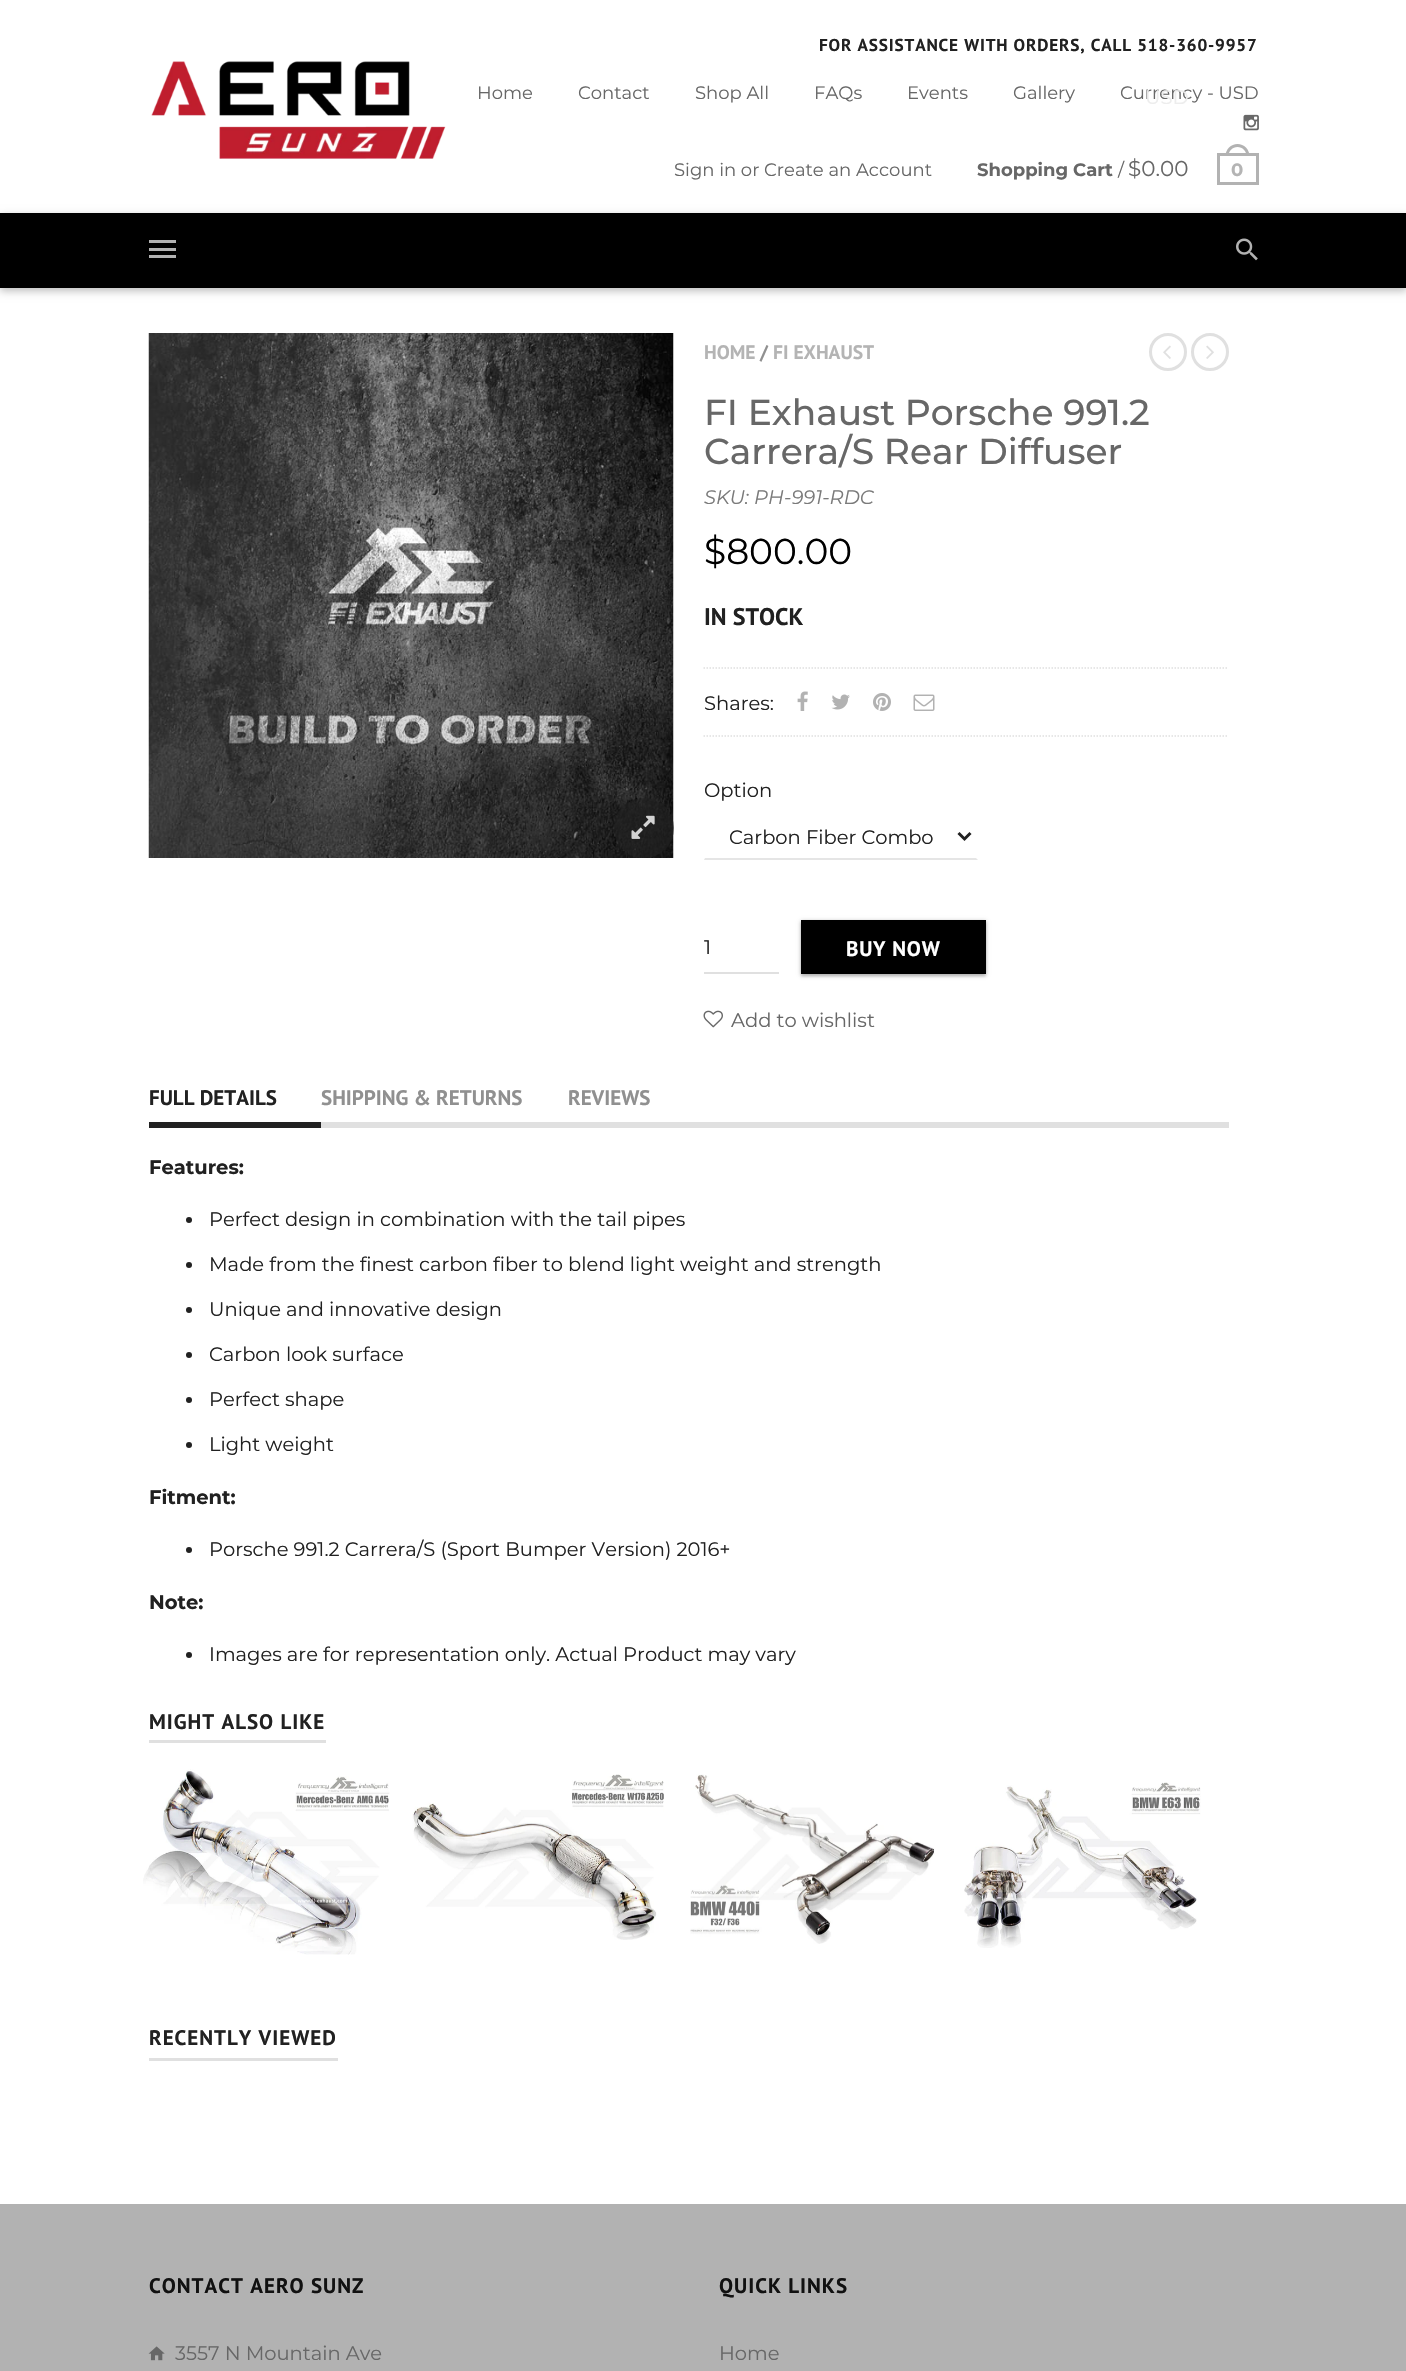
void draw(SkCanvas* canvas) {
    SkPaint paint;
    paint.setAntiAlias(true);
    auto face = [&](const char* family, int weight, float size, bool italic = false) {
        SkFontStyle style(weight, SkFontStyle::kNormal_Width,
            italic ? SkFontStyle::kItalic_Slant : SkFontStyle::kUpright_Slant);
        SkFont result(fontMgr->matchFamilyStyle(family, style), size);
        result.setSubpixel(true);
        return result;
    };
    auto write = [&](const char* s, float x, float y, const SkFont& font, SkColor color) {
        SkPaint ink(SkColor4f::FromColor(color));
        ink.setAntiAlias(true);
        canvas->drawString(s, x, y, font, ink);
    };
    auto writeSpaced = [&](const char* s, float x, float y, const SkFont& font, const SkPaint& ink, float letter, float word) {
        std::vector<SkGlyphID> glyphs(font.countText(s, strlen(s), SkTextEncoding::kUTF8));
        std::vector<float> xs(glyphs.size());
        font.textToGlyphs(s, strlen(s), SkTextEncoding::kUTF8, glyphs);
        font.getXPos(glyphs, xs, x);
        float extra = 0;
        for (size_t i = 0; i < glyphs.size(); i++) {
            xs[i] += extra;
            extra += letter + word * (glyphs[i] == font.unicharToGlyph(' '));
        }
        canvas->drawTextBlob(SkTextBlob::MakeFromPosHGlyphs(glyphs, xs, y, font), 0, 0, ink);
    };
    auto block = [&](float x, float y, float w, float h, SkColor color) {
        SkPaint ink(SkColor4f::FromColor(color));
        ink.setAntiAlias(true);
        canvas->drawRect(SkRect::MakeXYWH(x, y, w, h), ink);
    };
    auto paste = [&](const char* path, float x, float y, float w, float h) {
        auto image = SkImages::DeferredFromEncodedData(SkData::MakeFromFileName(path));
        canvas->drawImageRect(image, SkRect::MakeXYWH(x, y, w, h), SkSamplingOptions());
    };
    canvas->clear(SK_ColorWHITE);
    auto kFont1 = face("PT Sans", 700, 17.25f);
    paint.setColor(SkColorSetRGB(33, 33, 33));
    writeSpaced("FOR ASSISTANCE WITH ORDERS, CALL 518-360-9957", 819, 51, kFont1, paint, 0.85f, 0);
    paste("pic1.png", 151, 61, 295, 98);
    auto kFont2 = face("Montserrat", 400, 18);
    write("Home", 477, 99, kFont2, SkColorSetRGB(103, 103, 103));
    write("Contact", 578, 99, kFont2, SkColorSetRGB(103, 103, 103));
    write("Shop All", 695, 99, kFont2, SkColorSetRGB(103, 103, 103));
    write("FAQs", 814, 99, kFont2, SkColorSetRGB(103, 103, 103));
    write("Events", 907, 99, kFont2, SkColorSetRGB(103, 103, 103));
    write("Gallery", 1013, 99, kFont2, SkColorSetRGB(103, 103, 103));
    write("Currency - USD", 1120, 99, kFont2, SkColorSetRGB(103, 103, 103));
    auto kFont3 = face("Montserrat", 400, 19.5f);
    write("USD", 1145, 104, kFont3, SkColorSetRGB(237, 237, 237));
    paste("pic2.png", 1243, 114, 16, 17);
    write("Sign in or Create an Account", 674, 176, kFont2, SkColorSetRGB(103, 103, 103));
    auto kFont4 = face("Montserrat", 700, 18);
    write("Shopping Cart", 977, 176, kFont4, SkColorSetRGB(103, 103, 103));
    write("/", 1118, 176, kFont2, SkColorSetRGB(103, 103, 103));
    auto kFont5 = face("Montserrat", 400, 21.5f);
    write("$0.00", 1128, 176, kFont5, SkColorSetRGB(103, 103, 103));
    paint.setColor(SkColorSetRGB(178, 178, 178));
    canvas->drawPath(SkPathBuilder(SkPathFillType::kEvenOdd).moveTo(1237.5f, 144).cubicTo(1244, 144, 1249.5f, 149.5f, 1249.5f, 156).lineTo(1225.5f, 156).cubicTo(1225.5f, 149.5f, 1231, 144, 1237.5f, 144).close().moveTo(1237.5f, 147).cubicTo(1242.5f, 147, 1246.5f, 151, 1246.5f, 156).lineTo(1228.5f, 156).cubicTo(1228.5f, 151, 1232.5f, 147, 1237.5f, 147).close().detach(), paint);
    paint.setStyle(SkPaint::kStroke_Style);
    paint.setStrokeWidth(3);
    canvas->drawRect(SkRect::MakeXYWH(1218.5f, 154.5f, 39, 29), paint);
    write("0", 1231, 176, kFont4, SkColorSetRGB(180, 180, 180));
    paint.setStyle(SkPaint::kFill_Style);
    paint.setColor(SkColorSetARGB(66, 0, 0, 0));
    paint.setMaskFilter(SkMaskFilter::MakeBlur(kNormal_SkBlurStyle, 4));
    canvas->drawRect(SkRect::MakeXYWH(0, 216, 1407, 75), paint);
    paint.setMaskFilter(nullptr);
    block(0, 213, 1406, 75, SK_ColorBLACK);
    block(149, 240, 27, 3, SkColorSetRGB(178, 178, 178));
    block(149, 248, 27, 3, SkColorSetRGB(178, 178, 178));
    block(149, 255, 27, 3, SkColorSetRGB(178, 178, 178));
    paste("pic3.png", 1236, 238, 22, 23);
    paste("pic4.png", 148, 333, 526, 525);
    paint.setColor(SkColorSetARGB(163, 33, 33, 33));
    canvas->drawCircle(644, 828, 30, paint);
    paste("pic5.png", 631, 815, 24, 24);
    auto kFont6 = face("PT Sans", 700, 19.5f);
    write("HOME", 704, 359, kFont6, SkColorSetRGB(180, 180, 180));
    write("/", 760, 359, kFont6, SkColorSetRGB(144, 144, 144));
    write("FI EXHAUST", 773, 359, kFont6, SkColorSetRGB(180, 180, 180));
    paint.setStyle(SkPaint::kStroke_Style);
    paint.setColor(SkColorSetRGB(224, 224, 224));
    canvas->drawCircle(1168, 352, 17.5f, paint);
    paste("pic6.png", 1163, 345, 8, 14);
    canvas->drawCircle(1210, 352, 17.5f, paint);
    paste("pic7.png", 1206, 345, 8, 14);
    auto kFont7 = face("Montserrat", 500, 36);
    write("FI Exhaust Porsche 991.2", 704, 425, kFont7, SkColorSetRGB(103, 103, 103));
    write("Carrera/S Rear Diffuser", 704, 464, kFont7, SkColorSetRGB(103, 103, 103));
    auto kFont8 = face("Montserrat", 400, 19.5f, true);
    write("SKU: PH-991-RDC", 704, 504, kFont8, SkColorSetRGB(122, 122, 122));
    auto kFont9 = face("Montserrat", 400, 36);
    write("$800.00", 704, 564, kFont9, SK_ColorBLACK);
    auto kFont10 = face("PT Sans", 700, 24);
    write("IN STOCK", 704, 625, kFont10, SkColorSetRGB(33, 33, 33));
    paint.setStrokeWidth(1.5f);
    paint.setPathEffect(SkDashPathEffect::Make({{1.5f, 1.5f}}, 0));
    canvas->drawPath(SkPathBuilder().moveTo(703.5f, 668).lineTo(1228.5f, 668).detach(), paint);
    paint.setPathEffect(nullptr);
    paint.setPathEffect(SkDashPathEffect::Make({{1.5f, 1.5f}}, 0));
    canvas->drawPath(SkPathBuilder().moveTo(703.5f, 736).lineTo(1228.5f, 736).detach(), paint);
    paint.setPathEffect(nullptr);
    write("Shares:", 704, 710, kFont3, SkColorSetRGB(33, 33, 33));
    paste("pic8.png", 797, 691, 11, 20);
    paste("pic9.png", 831, 694, 19, 16);
    paste("pic10.png", 873, 693, 18, 18);
    paste("pic11.png", 913, 694, 22, 17);
    write("Option", 704, 797, kFont3, SkColorSetRGB(33, 33, 33));
    paint.setStyle(SkPaint::kFill_Style);
    paint.setColor(SkColorSetRGB(229, 229, 229));
    canvas->drawPath(SkPathBuilder().moveTo(978, 860).lineTo(704, 860).lineTo(705, 858).lineTo(976, 858).close().detach(), paint);
    paint.setStyle(SkPaint::kStroke_Style);
    paint.setStrokeWidth(3);
    paint.setColor(SkColorSetRGB(33, 33, 33));
    canvas->drawPath(SkPathBuilder().moveTo(958.5f, 833).lineTo(964.5f, 839).lineTo(970.5f, 833).detach(), paint);
    write("Carbon Fiber Combo", 729, 844, kFont3, SkColorSetRGB(33, 33, 33));
    block(704, 972, 75, 2, SkColorSetRGB(224, 224, 224));
    write("1", 704, 954, kFont3, SkColorSetRGB(33, 33, 33));
    paint.setStyle(SkPaint::kFill_Style);
    paint.setColor(SkColorSetARGB(77, 0, 0, 0));
    paint.setMaskFilter(SkMaskFilter::MakeBlur(kNormal_SkBlurStyle, 2));
    canvas->drawRect(SkRect::MakeXYWH(801, 921, 185, 54), paint);
    paint.setMaskFilter(nullptr);
    paint.setColor(SkColorSetARGB(26, 0, 0, 0));
    paint.setMaskFilter(SkMaskFilter::MakeBlur(kNormal_SkBlurStyle, 1));
    canvas->drawRect(SkRect::MakeXYWH(801, 923, 185, 54), paint);
    paint.setMaskFilter(nullptr);
    block(801, 920, 185, 54, SK_ColorBLACK);
    auto kFont11 = face("PT Sans", 700, 21);
    paint.setColor(SK_ColorWHITE);
    writeSpaced("BUY NOW", 846, 956, kFont11, paint, 0.75f, 0);
    paste("pic12.png", 703, 1010, 20, 18);
    write("Add to wishlist", 731, 1027, kFont3, SkColorSetRGB(103, 103, 103));
    block(149, 1122, 172, 6, SkColorSetRGB(33, 33, 33));
    write("FULL DETAILS", 149, 1105, kFont11, SkColorSetRGB(33, 33, 33));
    write("SHIPPING & RETURNS", 321, 1105, kFont11, SkColorSetRGB(144, 144, 144));
    write("REVIEWS", 568, 1105, kFont11, SkColorSetRGB(144, 144, 144));
    block(321, 1122, 908, 6, SkColorSetRGB(224, 224, 224));
    auto kFont12 = face("Montserrat", 700, 19.5f);
    write("Features:", 149, 1174, kFont12, SkColorSetRGB(33, 33, 33));
    paint.setColor(SkColorSetRGB(33, 33, 33));
    canvas->drawCircle(189, 1220, 3, paint);
    write("Perfect design in combination with the tail pipes", 209, 1226, kFont3, SkColorSetRGB(33, 33, 33));
    canvas->drawCircle(189, 1265, 3, paint);
    write("Made from the finest carbon fiber to blend light weight and strength", 209, 1271, kFont3, SkColorSetRGB(33, 33, 33));
    canvas->drawCircle(189, 1310, 3, paint);
    write("Unique and innovative design", 209, 1316, kFont3, SkColorSetRGB(33, 33, 33));
    canvas->drawCircle(189, 1355, 3, paint);
    write("Carbon look surface", 209, 1361, kFont3, SkColorSetRGB(33, 33, 33));
    canvas->drawCircle(189, 1400, 3, paint);
    write("Perfect shape", 209, 1406, kFont3, SkColorSetRGB(33, 33, 33));
    canvas->drawCircle(189, 1445, 3, paint);
    write("Light weight", 209, 1451, kFont3, SkColorSetRGB(33, 33, 33));
    write("Fitment:", 149, 1504, kFont12, SkColorSetRGB(33, 33, 33));
    canvas->drawCircle(189, 1550, 3, paint);
    write("Porsche 991.2 Carrera/S (Sport Bumper Version) 2016+", 209, 1556, kFont3, SkColorSetRGB(33, 33, 33));
    write("Note:", 149, 1609, kFont12, SkColorSetRGB(33, 33, 33));
    canvas->drawCircle(189, 1655, 3, paint);
    write("Images are for representation only. Actual Product may vary", 209, 1661, kFont3, SkColorSetRGB(33, 33, 33));
    writeSpaced("MIGHT ALSO LIKE", 149, 1729, kFont11, paint, 1, 0);
    block(149, 1740, 177, 3, SkColorSetRGB(224, 224, 224));
    paste("pic13.png", 143, 1769, 247, 186);
    paste("pic14.png", 412, 1774, 252, 166);
    paste("pic15.png", 690, 1774, 245, 170);
    paste("pic16.png", 964, 1782, 237, 166);
    writeSpaced("RECENTLY VIEWED", 149, 2045, kFont11, paint, 1, 0);
    block(149, 2058, 189, 3, SkColorSetRGB(224, 224, 224));
    block(0, 2204, 1406, 167, SkColorSetRGB(178, 178, 178));
    paint.setColor(SkColorSetRGB(17, 17, 17));
    writeSpaced("CONTACT AERO SUNZ", 149, 2293, kFont11, paint, 1, 0);
    paste("pic17.png", 148, 2346, 17, 15);
    write("3557 N Mountain Ave", 175, 2360, kFont3, SkColorSetRGB(103, 103, 103));
    writeSpaced("QUICK LINKS", 719, 2293, kFont11, paint, 1, 0);
    write("Home", 719, 2360, kFont3, SkColorSetRGB(103, 103, 103));
}
